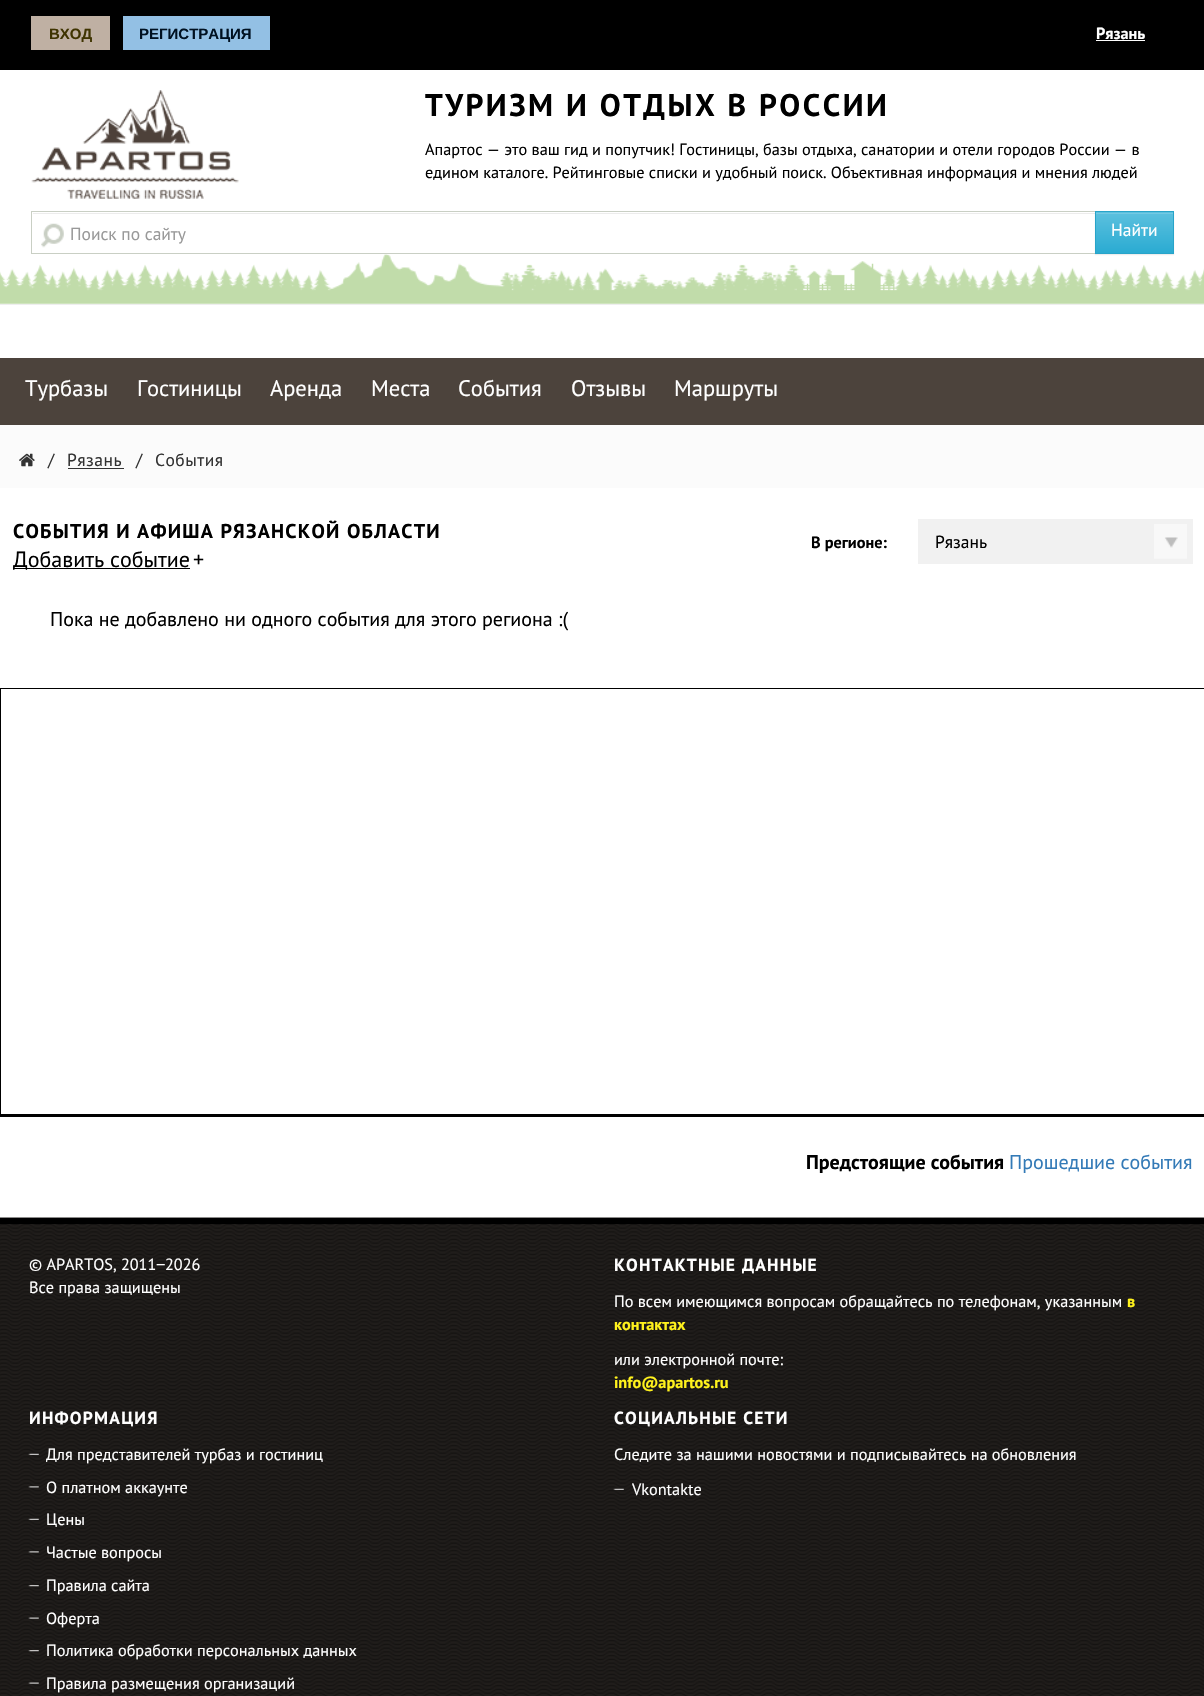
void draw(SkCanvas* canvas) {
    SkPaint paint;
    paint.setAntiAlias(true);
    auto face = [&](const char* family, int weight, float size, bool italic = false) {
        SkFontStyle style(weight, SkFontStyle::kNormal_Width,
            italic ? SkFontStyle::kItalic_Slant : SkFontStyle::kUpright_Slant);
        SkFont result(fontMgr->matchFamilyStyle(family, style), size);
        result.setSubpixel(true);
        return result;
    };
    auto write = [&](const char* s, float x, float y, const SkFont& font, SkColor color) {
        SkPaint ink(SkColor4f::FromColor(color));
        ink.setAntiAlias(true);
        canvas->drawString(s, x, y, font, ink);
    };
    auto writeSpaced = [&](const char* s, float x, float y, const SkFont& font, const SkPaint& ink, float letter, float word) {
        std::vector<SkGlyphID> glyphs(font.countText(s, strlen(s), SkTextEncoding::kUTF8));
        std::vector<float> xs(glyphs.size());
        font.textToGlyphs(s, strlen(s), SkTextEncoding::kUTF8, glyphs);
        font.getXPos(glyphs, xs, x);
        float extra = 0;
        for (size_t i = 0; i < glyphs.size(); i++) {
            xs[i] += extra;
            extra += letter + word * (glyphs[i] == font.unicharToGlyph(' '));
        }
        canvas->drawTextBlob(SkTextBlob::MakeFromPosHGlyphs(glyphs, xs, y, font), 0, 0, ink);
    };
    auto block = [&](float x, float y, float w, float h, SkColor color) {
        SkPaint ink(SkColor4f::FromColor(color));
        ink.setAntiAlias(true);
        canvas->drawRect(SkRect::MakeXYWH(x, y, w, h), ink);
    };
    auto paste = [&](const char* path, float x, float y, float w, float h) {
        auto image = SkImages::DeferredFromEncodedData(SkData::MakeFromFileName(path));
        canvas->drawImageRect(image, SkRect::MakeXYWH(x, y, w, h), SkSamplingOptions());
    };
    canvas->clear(SK_ColorWHITE);
    block(0, 0, 1204, 70, SK_ColorBLACK);
    block(31, 16, 79, 34, SkColorSetRGB(191, 176, 163));
    auto kFont1 = face("Liberation Sans", 700, 15);
    write("ВХОД", 49, 39, kFont1, SkColorSetRGB(63, 52, 1));
    block(123, 16, 147, 34, SkColorSetRGB(147, 192, 228));
    write("РЕГИСТРАЦИЯ", 139, 39, kFont1, SkColorSetRGB(0, 17, 33));
    auto kFont2 = face("PT Sans", 700, 16.25f);
    write("Рязань", 1096, 39, kFont2, SK_ColorWHITE);
    block(1096, 40, 49, 1, SK_ColorWHITE);
    paste("pic1.png", 0, 254, 1204, 50);
    block(0, 304, 1204, 1, SkColorSetRGB(238, 238, 238));
    paste("pic2.png", 31, 90, 208, 109);
    auto kFont3 = face("PT Sans", 700, 31.25f);
    paint.setColor(SK_ColorBLACK);
    writeSpaced("ТУРИЗМ И ОТДЫХ В РОССИИ", 425, 116, kFont3, paint, 2.5f, 0);
    auto kFont4 = face("PT Sans", 400, 16.25f);
    write("Апартос — это ваш гид и попутчик! Гостиницы, базы отдыха, санатории и отели городов России — в", 425, 155, kFont4, SK_ColorBLACK);
    write("едином каталоге. Рейтинговые списки и удобный поиск. Объективная информация и мнения людей", 425, 178, kFont4, SK_ColorBLACK);
    block(33, 213, 1062, 1, SkColorSetRGB(236, 236, 236));
    paint.setStyle(SkPaint::kStroke_Style);
    paint.setStrokeWidth(1);
    paint.setColor(SkColorSetRGB(201, 207, 196));
    canvas->drawRect(SkRect::MakeXYWH(31.5f, 211.5f, 1064, 42), paint);
    paste("pic3.png", 41, 223, 23, 25);
    auto kFont5 = face("PT Sans", 400, 17.5f);
    write("Поиск по сайту", 70, 240, kFont5, SkColorSetRGB(153, 153, 153));
    paint.setStyle(SkPaint::kFill_Style);
    paint.setColor(SkColorSetARGB(18, 0, 0, 0));
    paint.setMaskFilter(SkMaskFilter::MakeBlur(kNormal_SkBlurStyle, 0.5f));
    canvas->drawRect(SkRect::MakeXYWH(1095, 213, 79, 42), paint);
    paint.setMaskFilter(nullptr);
    block(1096, 212, 77, 1, SkColorSetRGB(91, 192, 222));
    {
        const SkColor colors[] = {SkColorSetRGB(91, 192, 222), SkColorSetRGB(42, 171, 210)};
        const float stops[] = {0, 1};
        const SkPoint ends[] = {{1134, 213}, {1134, 253}};
        paint.setShader(SkGradientShader::MakeLinear(ends, colors, stops, 2, SkTileMode::kClamp));
        paint.setAlpha(255);
    }
    canvas->drawRect(SkRect::MakeXYWH(1096, 214, 77, 39), paint);
    block(1096, 213, 77, 1, SkColorSetRGB(115, 201, 227));
    paint.setStyle(SkPaint::kStroke_Style);
    paint.setShader(nullptr);
    paint.setColor(SkColorSetRGB(40, 164, 201));
    canvas->drawRect(SkRect::MakeXYWH(1095.5f, 211.5f, 78, 42), paint);
    write("Найти", 1111, 236, kFont5, SK_ColorWHITE);
    block(0, 358, 1204, 67, SkColorSetRGB(76, 67, 60));
    auto kFont6 = face("PT Sans", 400, 22.5f);
    write("Турбазы", 25, 396, kFont6, SK_ColorWHITE);
    write("Гостиницы", 137, 396, kFont6, SK_ColorWHITE);
    write("Аренда", 270, 396, kFont6, SK_ColorWHITE);
    write("Места", 371, 396, kFont6, SK_ColorWHITE);
    write("События", 458, 396, kFont6, SK_ColorWHITE);
    write("Отзывы", 571, 396, kFont6, SK_ColorWHITE);
    write("Маршруты", 674, 396, kFont6, SK_ColorWHITE);
    block(0, 425, 1204, 63, SkColorSetRGB(251, 251, 251));
    paste("pic4.png", 19, 453, 16, 14);
    paint.setStyle(SkPaint::kFill_Style);
    paint.setColor(SkColorSetRGB(51, 51, 51));
    writeSpaced("/", 48, 466, kFont5, paint, 0.5f, 0);
    writeSpaced("Рязань", 67, 466, kFont5, paint, 0.5f, 0);
    block(68, 468, 56, 1, SkColorSetRGB(51, 51, 51));
    writeSpaced("/", 136, 466, kFont5, paint, 0.5f, 0);
    writeSpaced("События", 155, 466, kFont5, paint, 0.5f, 0);
    auto kFont7 = face("PT Sans", 700, 20);
    paint.setColor(SK_ColorBLACK);
    writeSpaced("СОБЫТИЯ И АФИША РЯЗАНСКОЙ ОБЛАСТИ", 13, 538, kFont7, paint, 1.25f, 0);
    block(13, 568, 177, 1, SK_ColorBLACK);
    auto kFont8 = face("PT Sans", 400, 22);
    write("Добавить событие", 13, 567, kFont8, SK_ColorBLACK);
    write("+", 193, 567, kFont8, SK_ColorBLACK);
    write("В регионе:", 811, 548, kFont2, SK_ColorBLACK);
    block(918, 519, 275, 45, SkColorSetRGB(241, 241, 241));
    write("Рязань", 935, 548, kFont5, SK_ColorBLACK);
    paste("pic5.png", 1154, 524, 33, 35);
    auto kFont9 = face("PT Sans", 400, 20);
    write("Пока не добавлено ни одного события для этого региона :(", 50, 626, kFont9, SK_ColorBLACK);
    block(0, 688, 1204, 1, SK_ColorBLACK);
    block(0, 1114, 1204, 3, SK_ColorBLACK);
    block(0, 689, 1, 425, SK_ColorBLACK);
    write("Предстоящие события", 806, 1169, kFont7, SK_ColorBLACK);
    write("Прошедшие события", 1009, 1169, kFont9, SkColorSetRGB(51, 122, 183));
    paste("pic6.png", 0, 1217, 1204, 479);
    block(0, 1218, 1204, 6, SK_ColorBLACK);
    write("© APARTOS, 2011", 29, 1270, kFont4, SK_ColorWHITE);
    auto kFont10 = face("Liberation Sans", 400, 16.25f);
    write("−", 156, 1270, kFont10, SK_ColorWHITE);
    write("2026", 165, 1270, kFont4, SK_ColorWHITE);
    write("Все права защищены", 29, 1293, kFont4, SK_ColorWHITE);
    auto kFont11 = face("PT Sans", 700, 17.5f);
    paint.setColor(SK_ColorWHITE);
    writeSpaced("КОНТАКТНЫЕ ДАННЫЕ", 614, 1271, kFont11, paint, 1.25f, 0);
    write("По всем имеющимся вопросам обращайтесь по телефонам, указанным", 614, 1307, kFont4, SK_ColorWHITE);
    write("в", 1127, 1307, kFont2, SkColorSetRGB(255, 242, 28));
    write("контактах", 614, 1330, kFont2, SkColorSetRGB(255, 242, 28));
    write("или электронной почте:", 614, 1365, kFont4, SK_ColorWHITE);
    write("info@apartos.ru", 614, 1388, kFont2, SkColorSetRGB(255, 242, 28));
    writeSpaced("ИНФОРМАЦИЯ", 29, 1424, kFont11, paint, 1.25f, 0);
    paste("pic7.png", 28, 1453, 11, 2);
    write("Для представителей турбаз и гостиниц", 46, 1460, kFont4, SK_ColorWHITE);
    paste("pic8.png", 28, 1486, 11, 2);
    write("О платном аккаунте", 46, 1493, kFont4, SK_ColorWHITE);
    paste("pic9.png", 28, 1518, 11, 2);
    write("Цены", 46, 1525, kFont4, SK_ColorWHITE);
    paste("pic10.png", 28, 1551, 11, 2);
    write("Частые вопросы", 46, 1558, kFont4, SK_ColorWHITE);
    paste("pic11.png", 28, 1585, 11, 2);
    write("Правила сайта", 46, 1591, kFont4, SK_ColorWHITE);
    paste("pic12.png", 28, 1617, 11, 2);
    write("Оферта", 46, 1624, kFont4, SK_ColorWHITE);
    paste("pic13.png", 28, 1650, 11, 2);
    write("Политика обработки персональных данных", 46, 1656, kFont4, SK_ColorWHITE);
    paste("pic14.png", 28, 1682, 11, 2);
    write("Правила размещения организаций", 46, 1689, kFont4, SK_ColorWHITE);
    writeSpaced("СОЦИАЛЬНЫЕ СЕТИ", 614, 1424, kFont11, paint, 1.25f, 0);
    write("Следите за нашими новостями и подписывайтесь на обновления", 614, 1460, kFont4, SK_ColorWHITE);
    paste("pic9.png", 613, 1488, 11, 2);
    write("Vkontakte", 632, 1495, kFont4, SK_ColorWHITE);
}
